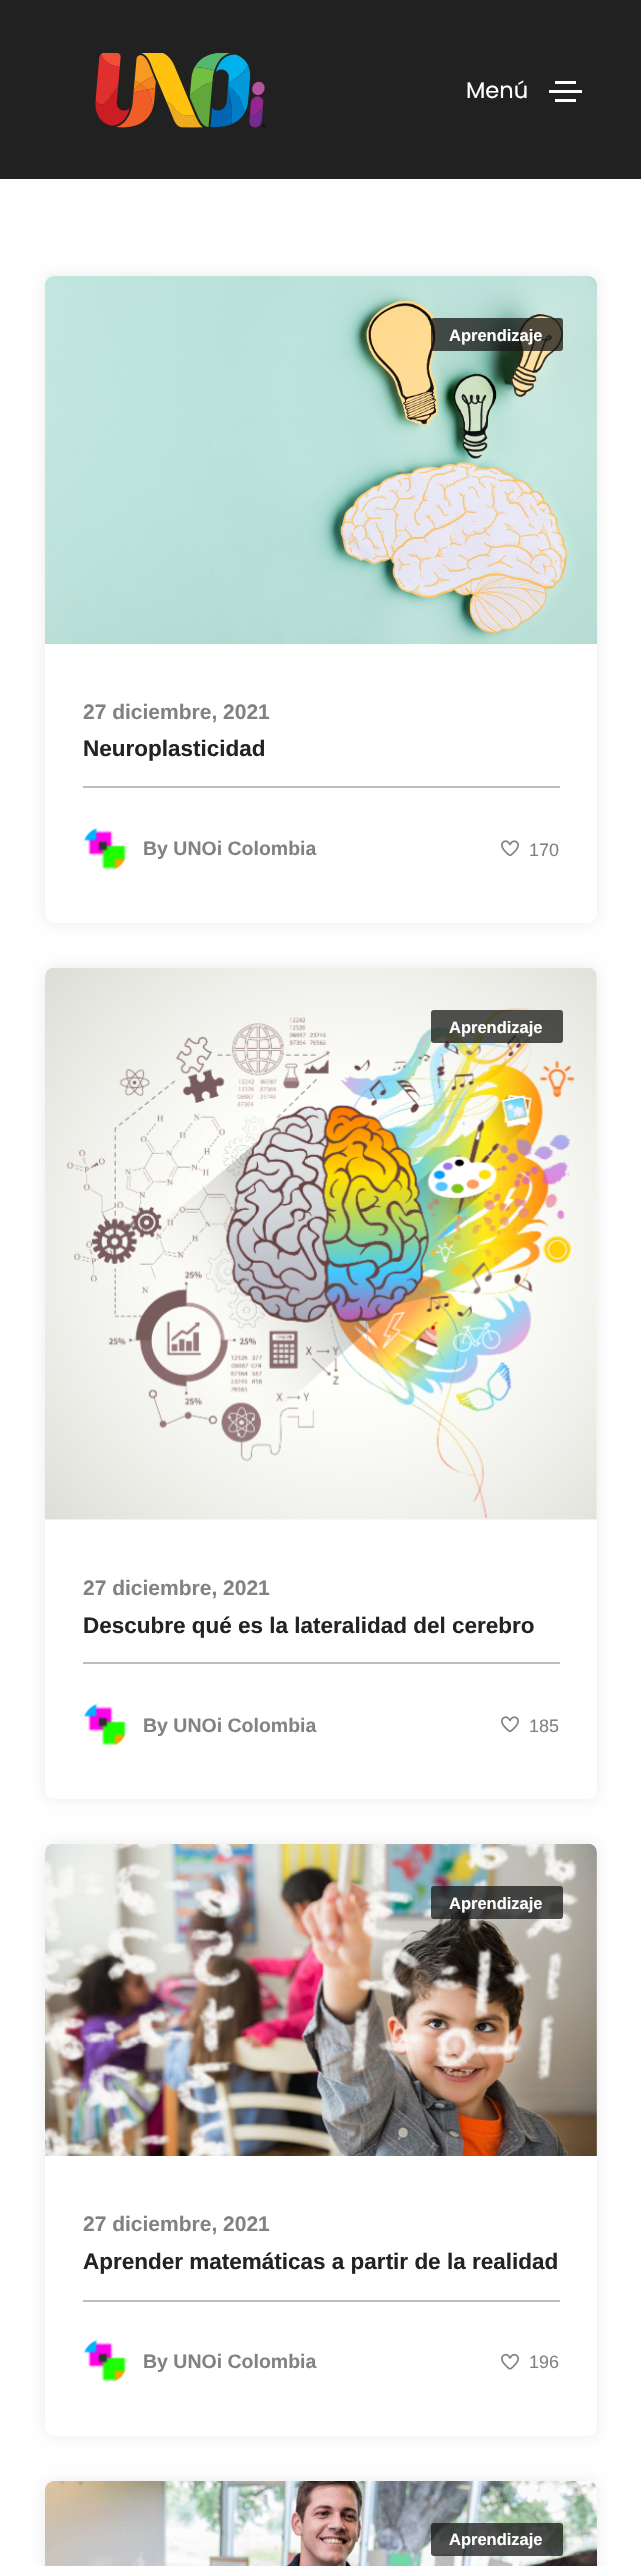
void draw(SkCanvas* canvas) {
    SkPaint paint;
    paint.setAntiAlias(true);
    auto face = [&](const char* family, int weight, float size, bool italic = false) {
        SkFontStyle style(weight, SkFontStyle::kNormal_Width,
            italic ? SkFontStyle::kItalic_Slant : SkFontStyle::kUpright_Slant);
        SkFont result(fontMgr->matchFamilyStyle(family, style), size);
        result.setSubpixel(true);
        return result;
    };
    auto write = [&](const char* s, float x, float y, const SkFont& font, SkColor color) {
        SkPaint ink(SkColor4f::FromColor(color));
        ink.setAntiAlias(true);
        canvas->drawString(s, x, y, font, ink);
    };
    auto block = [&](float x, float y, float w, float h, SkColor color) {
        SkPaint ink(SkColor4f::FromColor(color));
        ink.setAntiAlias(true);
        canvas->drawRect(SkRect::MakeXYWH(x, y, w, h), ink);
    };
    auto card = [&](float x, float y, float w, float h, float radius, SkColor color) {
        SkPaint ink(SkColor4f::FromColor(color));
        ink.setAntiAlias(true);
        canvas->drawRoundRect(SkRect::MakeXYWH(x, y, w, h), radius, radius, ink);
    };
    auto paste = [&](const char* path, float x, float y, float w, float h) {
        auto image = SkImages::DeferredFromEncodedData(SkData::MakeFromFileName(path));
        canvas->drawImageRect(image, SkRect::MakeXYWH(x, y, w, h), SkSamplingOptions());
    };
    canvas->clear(SK_ColorWHITE);
    block(0, 0, 641, 179, SkColorSetRGB(33, 33, 33));
    paste("pic1.png", 95, 53, 171, 75);
    auto kFont1 = face("Poppins", 400, 22.5f);
    write("Menú", 466, 98, kFont1, SK_ColorWHITE);
    block(555, 81, 21, 3, SK_ColorWHITE);
    block(549, 90, 33, 3, SK_ColorWHITE);
    block(555, 99, 21, 3, SK_ColorWHITE);
    paint.setColor(SkColorSetARGB(20, 0, 0, 0));
    paint.setMaskFilter(SkMaskFilter::MakeBlur(kNormal_SkBlurStyle, 7.5f));
    canvas->drawRoundRect(SkRect::MakeXYWH(45, 276, 552, 647), 9, 9, paint);
    paint.setMaskFilter(nullptr);
    card(45, 276, 552, 647, 9, SK_ColorWHITE);
    paste("pic2.png", 45, 276, 552, 368);
    card(431, 318, 132, 33, 3, SkColorSetARGB(191, 23, 23, 23));
    auto kFont2 = face("Liberation Sans", 700, 16.5f);
    write("Aprendizaje", 449, 341, kFont2, SK_ColorWHITE);
    auto kFont3 = face("Liberation Sans", 700, 21);
    write("27 diciembre, 2021", 83, 719, kFont3, SkColorSetRGB(130, 130, 130));
    auto kFont4 = face("Liberation Sans", 700, 22.5f);
    write("Neuroplasticidad", 83, 756, kFont4, SkColorSetRGB(35, 35, 35));
    block(83, 786, 477, 2, SkColorSetRGB(188, 188, 188));
    paste("pic3.png", 83, 827, 44, 43);
    auto kFont5 = face("Liberation Sans", 700, 19.5f);
    write("By UNOi Colombia", 143, 855, kFont5, SkColorSetRGB(130, 130, 130));
    paste("pic4.png", 501, 840, 18, 17);
    auto kFont6 = face("Liberation Sans", 400, 18);
    write("170", 529, 856, kFont6, SkColorSetRGB(130, 130, 130));
    paint.setMaskFilter(SkMaskFilter::MakeBlur(kNormal_SkBlurStyle, 7.5f));
    canvas->drawRoundRect(SkRect::MakeXYWH(45, 968, 552, 831), 9, 9, paint);
    paint.setMaskFilter(nullptr);
    card(45, 968, 552, 831, 9, SK_ColorWHITE);
    paste("pic5.png", 45, 968, 552, 552);
    card(431, 1010, 132, 33, 3, SkColorSetARGB(191, 23, 23, 23));
    write("Aprendizaje", 449, 1033, kFont2, SK_ColorWHITE);
    write("27 diciembre, 2021", 83, 1595, kFont3, SkColorSetRGB(130, 130, 130));
    write("Descubre qué es la lateralidad del cerebro", 83, 1633, kFont4, SkColorSetRGB(35, 35, 35));
    block(83, 1662, 477, 2, SkColorSetRGB(188, 188, 188));
    paste("pic3.png", 83, 1703, 44, 43);
    write("By UNOi Colombia", 143, 1732, kFont5, SkColorSetRGB(130, 130, 130));
    paste("pic4.png", 501, 1716, 18, 17);
    write("185", 529, 1732, kFont6, SkColorSetRGB(130, 130, 130));
    paint.setMaskFilter(SkMaskFilter::MakeBlur(kNormal_SkBlurStyle, 7.5f));
    canvas->drawRoundRect(SkRect::MakeXYWH(45, 1844, 552, 592), 9, 9, paint);
    paint.setMaskFilter(nullptr);
    card(45, 1844, 552, 592, 9, SK_ColorWHITE);
    paste("pic6.png", 45, 1844, 552, 312);
    card(431, 1886, 132, 33, 3, SkColorSetARGB(191, 23, 23, 23));
    write("Aprendizaje", 449, 1909, kFont2, SK_ColorWHITE);
    write("27 diciembre, 2021", 83, 2231, kFont3, SkColorSetRGB(130, 130, 130));
    write("Aprender matemáticas a partir de la realidad", 83, 2269, kFont4, SkColorSetRGB(35, 35, 35));
    block(83, 2300, 477, 2, SkColorSetRGB(188, 188, 188));
    paste("pic3.png", 83, 2339, 44, 43);
    write("By UNOi Colombia", 143, 2368, kFont5, SkColorSetRGB(130, 130, 130));
    paste("pic7.png", 501, 2353, 18, 17);
    write("196", 529, 2368, kFont6, SkColorSetRGB(130, 130, 130));
    paint.setMaskFilter(SkMaskFilter::MakeBlur(kNormal_SkBlurStyle, 7.5f));
    canvas->drawRoundRect(SkRect::MakeXYWH(45, 2481, 552, 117), 9, 9, paint);
    paint.setMaskFilter(nullptr);
    card(45, 2481, 552, 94, 9, SK_ColorWHITE);
    paste("pic8.png", 45, 2481, 552, 85);
    card(431, 2523, 132, 33, 3, SkColorSetARGB(191, 23, 23, 23));
    write("Aprendizaje", 449, 2545, kFont2, SK_ColorWHITE);
}
